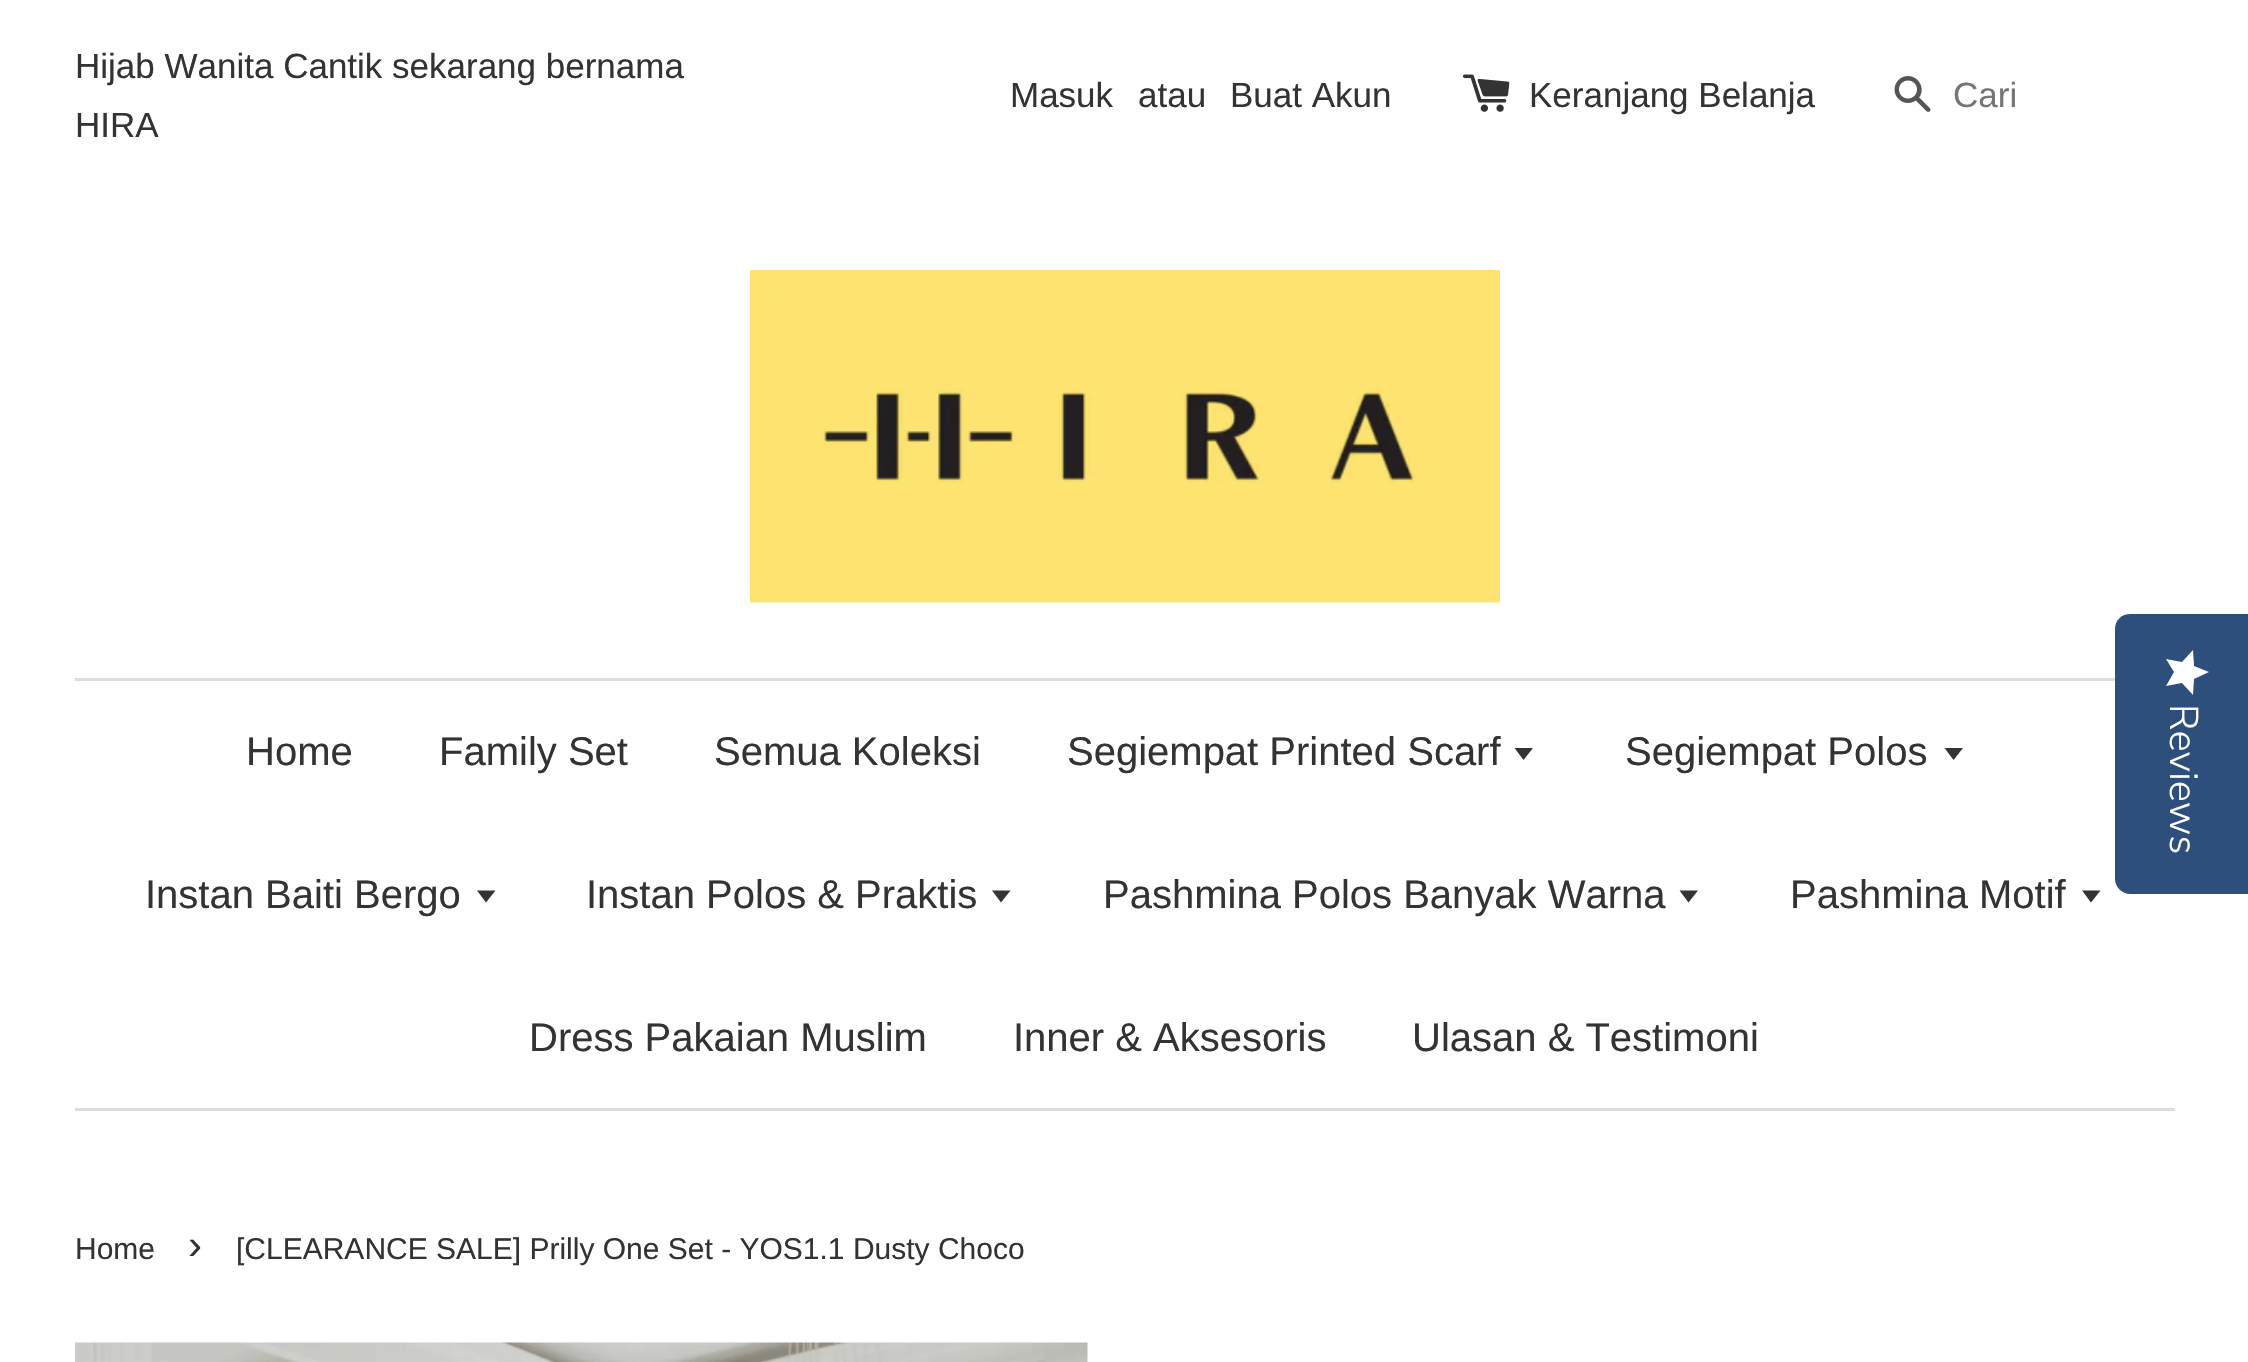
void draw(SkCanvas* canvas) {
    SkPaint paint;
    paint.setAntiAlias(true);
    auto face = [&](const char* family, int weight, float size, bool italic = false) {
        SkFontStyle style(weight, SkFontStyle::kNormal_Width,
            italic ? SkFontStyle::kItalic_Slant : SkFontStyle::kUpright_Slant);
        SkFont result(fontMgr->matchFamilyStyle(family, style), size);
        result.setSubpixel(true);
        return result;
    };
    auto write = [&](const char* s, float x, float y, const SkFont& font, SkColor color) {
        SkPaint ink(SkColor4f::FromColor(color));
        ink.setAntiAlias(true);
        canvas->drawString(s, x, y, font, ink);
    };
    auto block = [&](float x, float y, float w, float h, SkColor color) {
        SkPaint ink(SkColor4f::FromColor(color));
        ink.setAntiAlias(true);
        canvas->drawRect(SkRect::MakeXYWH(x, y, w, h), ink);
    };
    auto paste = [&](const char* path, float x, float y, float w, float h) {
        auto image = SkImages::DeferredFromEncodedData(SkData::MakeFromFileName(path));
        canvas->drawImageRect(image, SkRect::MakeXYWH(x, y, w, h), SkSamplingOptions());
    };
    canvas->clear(SK_ColorWHITE);
    auto kFont1 = face("Liberation Sans", 400, 35);
    write("Hijab Wanita Cantik sekarang bernama", 75, 78, kFont1, SkColorSetRGB(51, 51, 51));
    write("HIRA", 75, 137, kFont1, SkColorSetRGB(51, 51, 51));
    write("Masuk", 1010, 107, kFont1, SkColorSetRGB(51, 51, 51));
    write("atau", 1138, 107, kFont1, SkColorSetRGB(51, 51, 51));
    write("Buat Akun", 1230, 107, kFont1, SkColorSetRGB(51, 51, 51));
    paste("pic1.png", 1462, 74, 48, 38);
    write("Keranjang Belanja", 1529, 107, kFont1, SkColorSetRGB(51, 51, 51));
    paste("pic2.png", 1894, 76, 37, 36);
    write("Cari", 1953, 107, kFont1, SkColorSetRGB(117, 117, 117));
    paste("pic3.png", 750, 270, 750, 333);
    block(75, 678, 2040, 3, SkColorSetRGB(221, 221, 221));
    block(75, 1108, 2100, 3, SkColorSetRGB(221, 221, 221));
    auto kFont2 = face("Liberation Sans", 400, 40);
    write("Home", 246, 765, kFont2, SkColorSetRGB(51, 51, 51));
    write("Family Set", 439, 765, kFont2, SkColorSetRGB(51, 51, 51));
    write("Semua Koleksi", 714, 765, kFont2, SkColorSetRGB(51, 51, 51));
    write("Segiempat Printed Scarf", 1067, 765, kFont2, SkColorSetRGB(51, 51, 51));
    paint.setColor(SkColorSetRGB(51, 51, 51));
    canvas->drawPath(SkPathBuilder().moveTo(1514.5f, 748).lineTo(1523.5f, 760).lineTo(1533, 748).close().detach(), paint);
    write("Segiempat Polos", 1625, 765, kFont2, SkColorSetRGB(51, 51, 51));
    canvas->drawPath(SkPathBuilder().moveTo(1944.5f, 748).lineTo(1953.5f, 760).lineTo(1963, 748).close().detach(), paint);
    write("Instan Baiti Bergo", 145, 908, kFont2, SkColorSetRGB(51, 51, 51));
    canvas->drawPath(SkPathBuilder().moveTo(477, 890.5f).lineTo(486, 902.5f).lineTo(495.5f, 890.5f).close().detach(), paint);
    write("Instan Polos & Praktis", 586, 908, kFont2, SkColorSetRGB(51, 51, 51));
    canvas->drawPath(SkPathBuilder().moveTo(992, 890.5f).lineTo(1001, 902.5f).lineTo(1010.5f, 890.5f).close().detach(), paint);
    write("Pashmina Polos Banyak Warna", 1103, 908, kFont2, SkColorSetRGB(51, 51, 51));
    canvas->drawPath(SkPathBuilder().moveTo(1679.5f, 890.5f).lineTo(1688.5f, 902.5f).lineTo(1698, 890.5f).close().detach(), paint);
    write("Pashmina Motif", 1790, 908, kFont2, SkColorSetRGB(51, 51, 51));
    canvas->drawPath(SkPathBuilder().moveTo(2082, 890.5f).lineTo(2091, 902.5f).lineTo(2100.5f, 890.5f).close().detach(), paint);
    write("Dress Pakaian Muslim", 529, 1051, kFont2, SkColorSetRGB(51, 51, 51));
    write("Inner & Aksesoris", 1013, 1051, kFont2, SkColorSetRGB(51, 51, 51));
    write("Ulasan & Testimoni", 1412, 1051, kFont2, SkColorSetRGB(51, 51, 51));
    paint.setColor(SkColorSetRGB(46, 79, 124));
    canvas->drawPath(SkPathBuilder().moveTo(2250, 614).lineTo(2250, 894).lineTo(2130, 894).cubicTo(2122, 894, 2115, 887, 2115, 879).lineTo(2115, 629).cubicTo(2115, 620, 2122, 614, 2130, 614).close().detach(), paint);
    {
        const SkColor colors[] = {SK_ColorWHITE, SkColorSetRGB(234, 234, 234)};
        const float stops[] = {1, 1};
        const SkPoint ends[] = {{2209, 650}, {2209, 695}};
        paint.setShader(SkGradientShader::MakeLinear(ends, colors, stops, 2, SkTileMode::kClamp));
        paint.setAlpha(255);
    }
    canvas->drawPath(SkPathBuilder().moveTo(2174, 672).lineTo(2166, 686).lineTo(2182, 683).lineTo(2193, 695).lineTo(2194, 679).lineTo(2209, 672).lineTo(2194, 666).lineTo(2193, 650).lineTo(2182, 662).lineTo(2166, 659).close().detach(), paint);
    auto kFont3 = face("Nunito Sans", 300, 40);
    canvas->save();
    canvas->rotate(90, 2170, 704);
    write("Reviews", 2170, 704, kFont3, SK_ColorWHITE);
    canvas->restore();
    auto kFont4 = face("Liberation Sans", 400, 30);
    write("Home", 75, 1259, kFont4, SkColorSetRGB(51, 51, 51));
    auto kFont5 = face("Liberation Sans", 400, 42);
    write("›", 188, 1259, kFont5, SkColorSetRGB(51, 51, 51));
    write("[CLEARANCE SALE] Prilly One Set - YOS1.1 Dusty Choco", 236, 1259, kFont4, SkColorSetRGB(51, 51, 51));
    paste("pic4.png", 75, 1342, 1013, 20);
}
